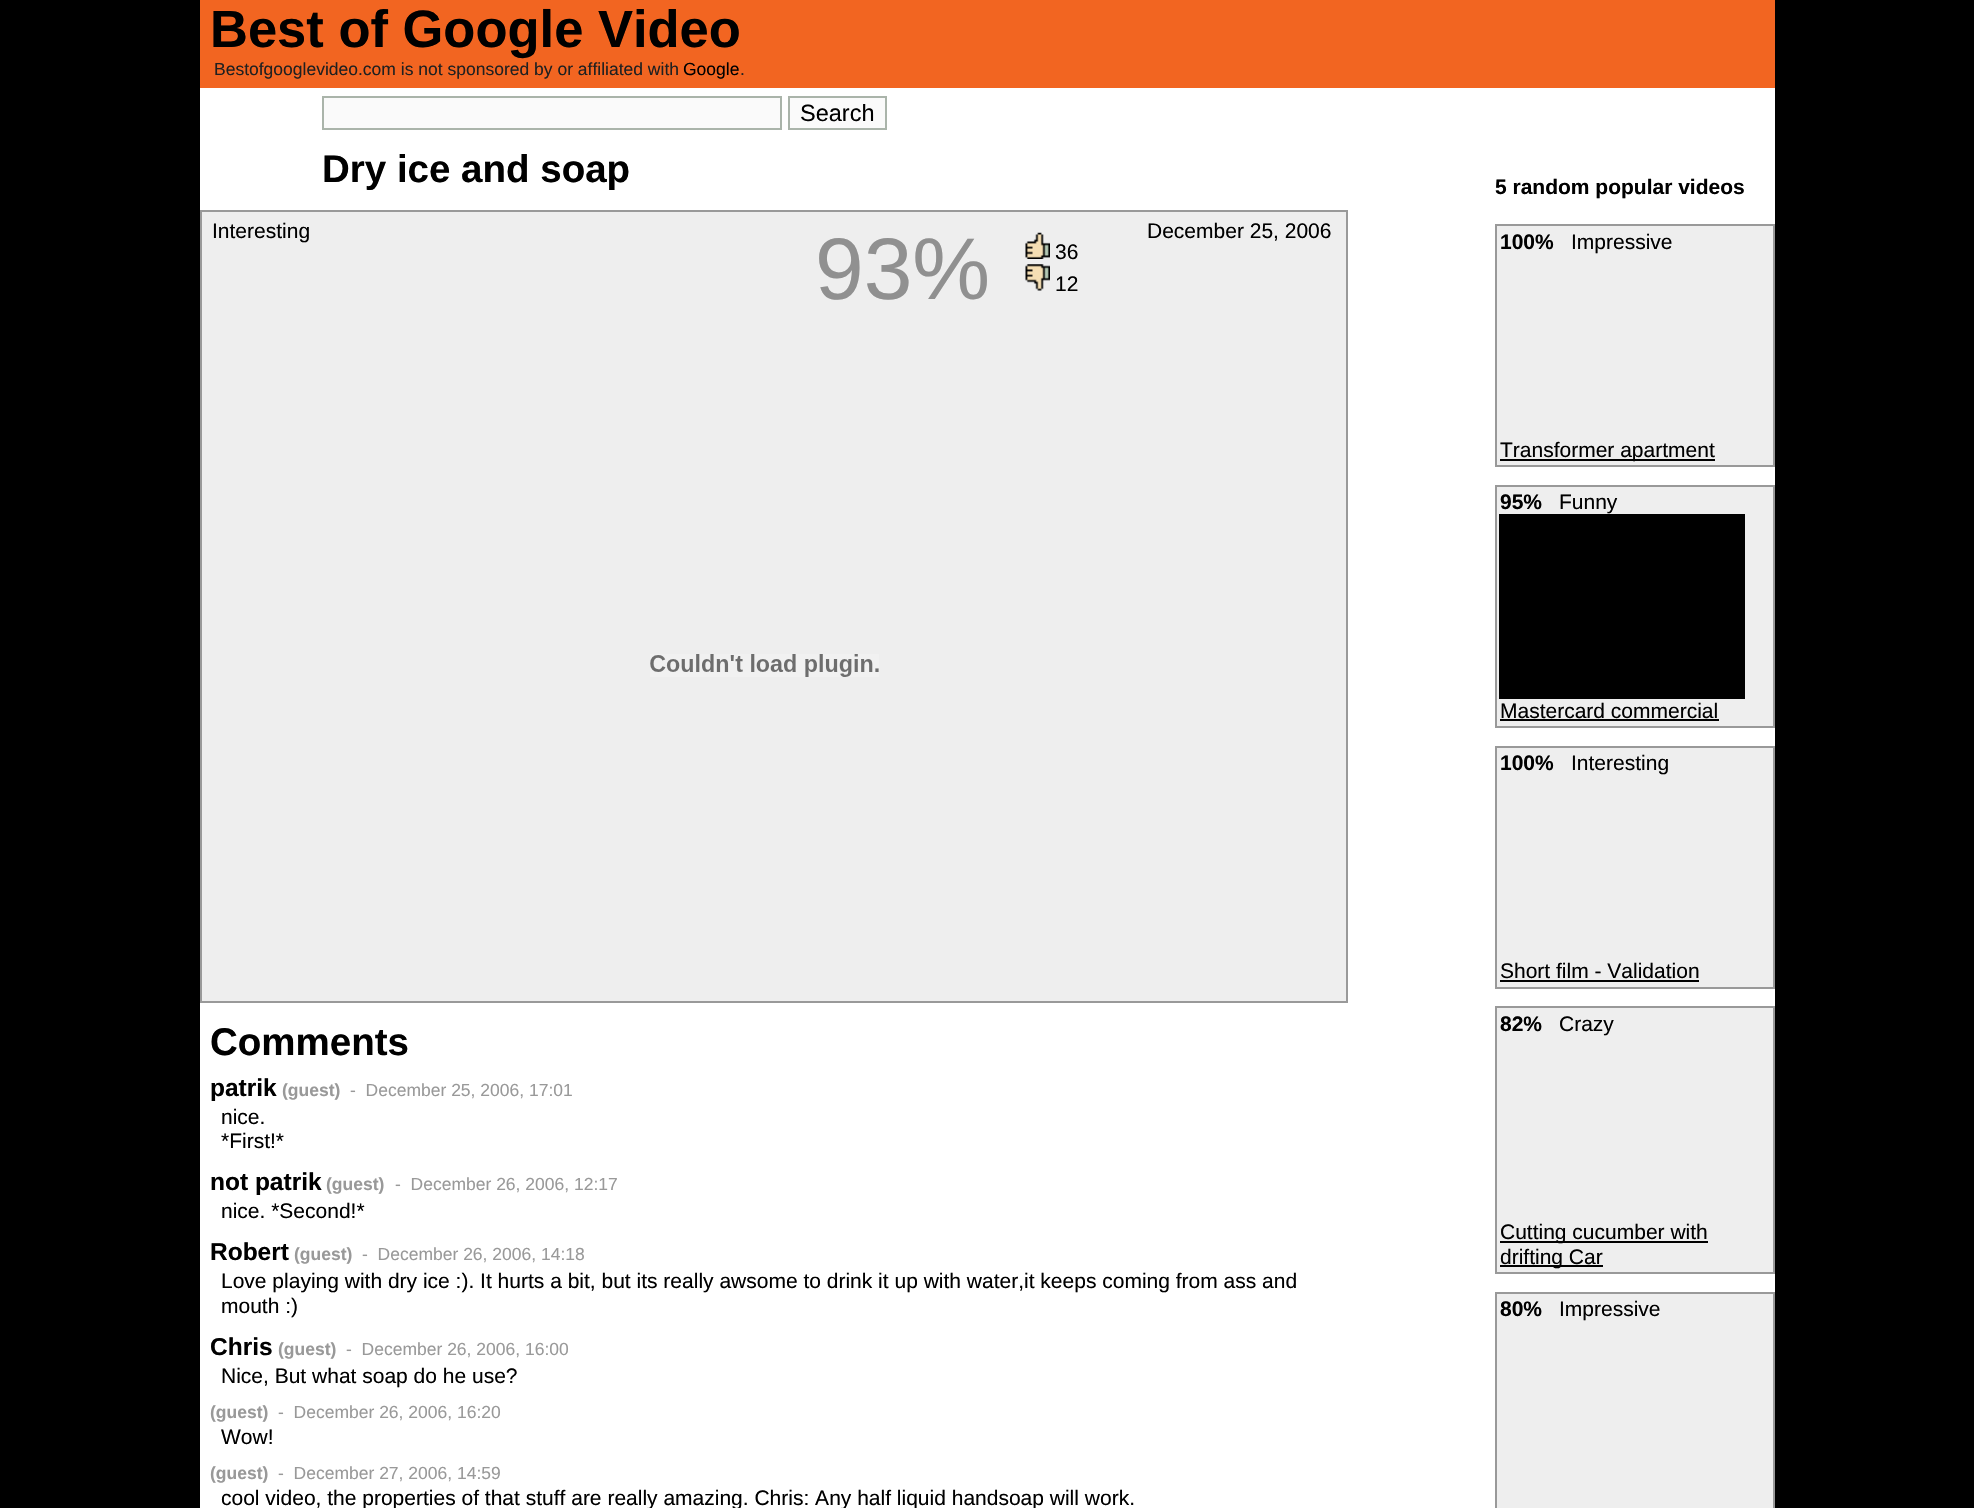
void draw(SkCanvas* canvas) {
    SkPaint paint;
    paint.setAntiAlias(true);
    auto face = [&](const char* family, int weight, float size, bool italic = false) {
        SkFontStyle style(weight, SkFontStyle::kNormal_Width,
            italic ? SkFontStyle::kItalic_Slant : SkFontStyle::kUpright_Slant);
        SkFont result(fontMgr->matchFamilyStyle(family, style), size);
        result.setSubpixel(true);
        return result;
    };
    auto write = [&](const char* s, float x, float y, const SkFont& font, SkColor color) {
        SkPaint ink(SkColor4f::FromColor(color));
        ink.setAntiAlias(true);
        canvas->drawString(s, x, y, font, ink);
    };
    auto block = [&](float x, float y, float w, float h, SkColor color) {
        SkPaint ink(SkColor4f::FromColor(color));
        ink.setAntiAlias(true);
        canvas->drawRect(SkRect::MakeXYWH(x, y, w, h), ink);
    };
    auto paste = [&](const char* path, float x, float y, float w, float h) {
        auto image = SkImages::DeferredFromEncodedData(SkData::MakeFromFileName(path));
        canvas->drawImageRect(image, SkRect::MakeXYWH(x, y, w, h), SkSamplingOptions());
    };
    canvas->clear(SK_ColorBLACK);
    block(200, 0, 1575, 88, SkColorSetRGB(242, 101, 33));
    auto kFont1 = face("Liberation Sans", 700, 52.5f);
    write("Best of Google Video", 210, 47, kFont1, SK_ColorBLACK);
    auto kFont2 = face("Liberation Sans", 400, 17.5f);
    write("Bestofgooglevideo.com is not sponsored by or affiliated with", 214, 75, kFont2, SkColorSetRGB(32, 32, 32));
    write("Google", 683, 75, kFont2, SK_ColorBLACK);
    write(".", 740, 75, kFont2, SkColorSetRGB(32, 32, 32));
    block(200, 88, 1575, 1420, SK_ColorWHITE);
    paint.setColor(SkColorSetRGB(250, 250, 250));
    canvas->drawRect(SkRect::MakeXYWH(323, 97, 458, 32), paint);
    paint.setStyle(SkPaint::kStroke_Style);
    paint.setStrokeWidth(2);
    paint.setColor(SkColorSetRGB(170, 180, 170));
    canvas->drawRect(SkRect::MakeXYWH(323, 97, 458, 32), paint);
    paint.setStyle(SkPaint::kFill_Style);
    paint.setColor(SkColorSetRGB(250, 250, 250));
    canvas->drawRect(SkRect::MakeXYWH(789, 97, 97, 32), paint);
    paint.setStyle(SkPaint::kStroke_Style);
    paint.setColor(SkColorSetRGB(170, 180, 170));
    canvas->drawRect(SkRect::MakeXYWH(789, 97, 97, 32), paint);
    auto kFont3 = face("Liberation Sans", 400, 23.5f);
    write("Search", 800, 121, kFont3, SK_ColorBLACK);
    auto kFont4 = face("Liberation Sans", 700, 38.5f);
    write("Dry ice and soap", 322, 182, kFont4, SK_ColorBLACK);
    paint.setStyle(SkPaint::kFill_Style);
    paint.setColor(SkColorSetRGB(238, 238, 238));
    canvas->drawRect(SkRect::MakeXYWH(201, 211, 1146, 791), paint);
    paint.setStyle(SkPaint::kStroke_Style);
    paint.setColor(SkColorSetRGB(153, 153, 153));
    canvas->drawRect(SkRect::MakeXYWH(201, 211, 1146, 791), paint);
    auto kFont5 = face("Liberation Sans", 400, 21);
    write("Interesting", 212, 238, kFont5, SK_ColorBLACK);
    write("December 25, 2006", 1147, 238, kFont5, SK_ColorBLACK);
    auto kFont6 = face("Liberation Sans", 400, 87.5f);
    write("93%", 815, 299, kFont6, SkColorSetRGB(144, 144, 144));
    paste("pic1.png", 1025, 232, 25, 27);
    write("36", 1055, 259, kFont5, SK_ColorBLACK);
    paste("pic2.png", 1025, 264, 25, 27);
    write("12", 1055, 291, kFont5, SK_ColorBLACK);
    paste("pic3.png", 650, 654, 229, 23);
    write("Comments", 210, 1055, kFont4, SK_ColorBLACK);
    auto kFont7 = face("Liberation Sans", 700, 24.5f);
    write("patrik", 210, 1096, kFont7, SK_ColorBLACK);
    auto kFont8 = face("Liberation Sans", 700, 17.5f);
    write("(guest)", 282, 1096, kFont8, SkColorSetRGB(153, 153, 153));
    write("-  December 25, 2006, 17:01", 350, 1096, kFont2, SkColorSetRGB(153, 153, 153));
    write("nice.", 221, 1124, kFont5, SK_ColorBLACK);
    write("*First!*", 221, 1148, kFont5, SK_ColorBLACK);
    write("not patrik", 210, 1190, kFont7, SK_ColorBLACK);
    write("(guest)", 326, 1190, kFont8, SkColorSetRGB(153, 153, 153));
    write("-  December 26, 2006, 12:17", 395, 1190, kFont2, SkColorSetRGB(153, 153, 153));
    write("nice. *Second!*", 221, 1218, kFont5, SK_ColorBLACK);
    write("Robert", 210, 1260, kFont7, SK_ColorBLACK);
    write("(guest)", 294, 1260, kFont8, SkColorSetRGB(153, 153, 153));
    write("-  December 26, 2006, 14:18", 362, 1260, kFont2, SkColorSetRGB(153, 153, 153));
    write("Love playing with dry ice :). It hurts a bit, but its really awsome to drink it up with water,it keeps coming from ass and", 221, 1288, kFont5, SK_ColorBLACK);
    write("mouth :)", 221, 1313, kFont5, SK_ColorBLACK);
    write("Chris", 210, 1355, kFont7, SK_ColorBLACK);
    write("(guest)", 278, 1355, kFont8, SkColorSetRGB(153, 153, 153));
    write("-  December 26, 2006, 16:00", 346, 1355, kFont2, SkColorSetRGB(153, 153, 153));
    write("Nice, But what soap do he use?", 221, 1383, kFont5, SK_ColorBLACK);
    write("(guest)", 210, 1418, kFont8, SkColorSetRGB(153, 153, 153));
    write("-  December 26, 2006, 16:20", 278, 1418, kFont2, SkColorSetRGB(153, 153, 153));
    write("Wow!", 221, 1444, kFont5, SK_ColorBLACK);
    write("(guest)", 210, 1479, kFont8, SkColorSetRGB(153, 153, 153));
    write("-  December 27, 2006, 14:59", 278, 1479, kFont2, SkColorSetRGB(153, 153, 153));
    write("cool video, the properties of that stuff are really amazing. Chris: Any half liquid handsoap will work.", 221, 1505, kFont5, SK_ColorBLACK);
    auto kFont9 = face("Liberation Sans", 700, 21);
    write("5 random popular videos", 1495, 194, kFont9, SK_ColorBLACK);
    paint.setStyle(SkPaint::kFill_Style);
    paint.setColor(SkColorSetRGB(238, 238, 238));
    canvas->drawRect(SkRect::MakeXYWH(1496, 225, 278, 241), paint);
    paint.setStyle(SkPaint::kStroke_Style);
    paint.setColor(SkColorSetRGB(153, 153, 153));
    canvas->drawRect(SkRect::MakeXYWH(1496, 225, 278, 241), paint);
    write("100%", 1500, 249, kFont9, SK_ColorBLACK);
    write("Impressive", 1571, 249, kFont5, SK_ColorBLACK);
    block(1500, 459, 215, 2, SK_ColorBLACK);
    write("Transformer apartment", 1500, 457, kFont5, SK_ColorBLACK);
    paint.setStyle(SkPaint::kFill_Style);
    paint.setColor(SkColorSetRGB(238, 238, 238));
    canvas->drawRect(SkRect::MakeXYWH(1496, 486, 278, 241), paint);
    paint.setStyle(SkPaint::kStroke_Style);
    paint.setColor(SkColorSetRGB(153, 153, 153));
    canvas->drawRect(SkRect::MakeXYWH(1496, 486, 278, 241), paint);
    write("95%", 1500, 509, kFont9, SK_ColorBLACK);
    write("Funny", 1559, 509, kFont5, SK_ColorBLACK);
    block(1499, 514, 246, 185, SK_ColorBLACK);
    write("Mastercard commercial", 1500, 718, kFont5, SK_ColorBLACK);
    block(1500, 719, 219, 2, SK_ColorBLACK);
    paint.setStyle(SkPaint::kFill_Style);
    paint.setColor(SkColorSetRGB(238, 238, 238));
    canvas->drawRect(SkRect::MakeXYWH(1496, 747, 278, 241), paint);
    paint.setStyle(SkPaint::kStroke_Style);
    paint.setColor(SkColorSetRGB(153, 153, 153));
    canvas->drawRect(SkRect::MakeXYWH(1496, 747, 278, 241), paint);
    write("100%", 1500, 770, kFont9, SK_ColorBLACK);
    write("Interesting", 1571, 770, kFont5, SK_ColorBLACK);
    write("Short film - Validation", 1500, 978, kFont5, SK_ColorBLACK);
    block(1500, 980, 199, 2, SK_ColorBLACK);
    paint.setStyle(SkPaint::kFill_Style);
    paint.setColor(SkColorSetRGB(238, 238, 238));
    canvas->drawRect(SkRect::MakeXYWH(1496, 1007, 278, 266), paint);
    paint.setStyle(SkPaint::kStroke_Style);
    paint.setColor(SkColorSetRGB(153, 153, 153));
    canvas->drawRect(SkRect::MakeXYWH(1496, 1007, 278, 266), paint);
    write("82%", 1500, 1031, kFont9, SK_ColorBLACK);
    write("Crazy", 1559, 1031, kFont5, SK_ColorBLACK);
    block(1500, 1241, 208, 2, SK_ColorBLACK);
    write("Cutting cucumber with", 1500, 1239, kFont5, SK_ColorBLACK);
    block(1500, 1265, 103, 2, SK_ColorBLACK);
    write("drifting Car", 1500, 1264, kFont5, SK_ColorBLACK);
    paint.setStyle(SkPaint::kFill_Style);
    paint.setColor(SkColorSetRGB(238, 238, 238));
    canvas->drawRect(SkRect::MakeXYWH(1496, 1293, 278, 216), paint);
    paint.setStyle(SkPaint::kStroke_Style);
    paint.setColor(SkColorSetRGB(153, 153, 153));
    canvas->drawRect(SkRect::MakeXYWH(1496, 1293, 278, 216), paint);
    write("80%", 1500, 1316, kFont9, SK_ColorBLACK);
    write("Impressive", 1559, 1316, kFont5, SK_ColorBLACK);
}
